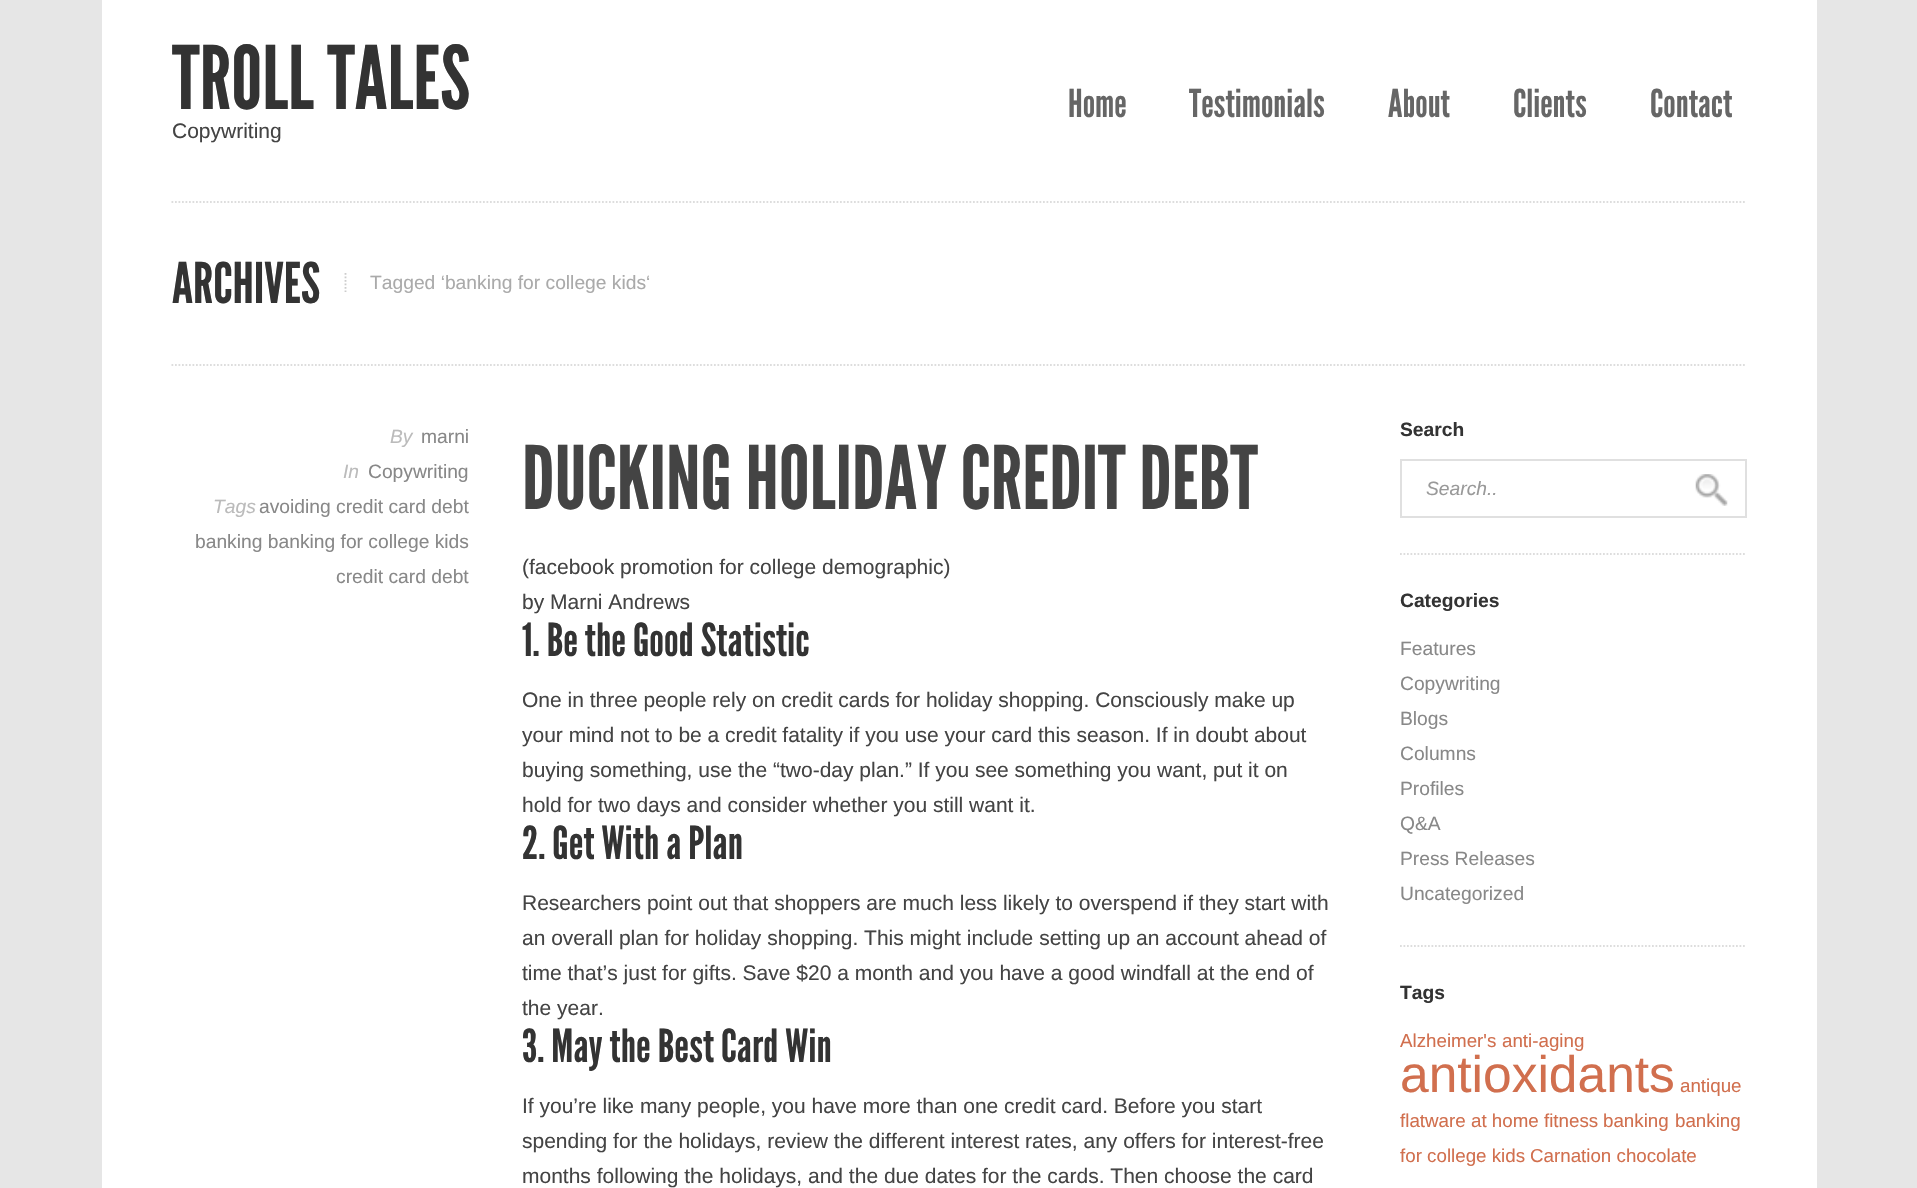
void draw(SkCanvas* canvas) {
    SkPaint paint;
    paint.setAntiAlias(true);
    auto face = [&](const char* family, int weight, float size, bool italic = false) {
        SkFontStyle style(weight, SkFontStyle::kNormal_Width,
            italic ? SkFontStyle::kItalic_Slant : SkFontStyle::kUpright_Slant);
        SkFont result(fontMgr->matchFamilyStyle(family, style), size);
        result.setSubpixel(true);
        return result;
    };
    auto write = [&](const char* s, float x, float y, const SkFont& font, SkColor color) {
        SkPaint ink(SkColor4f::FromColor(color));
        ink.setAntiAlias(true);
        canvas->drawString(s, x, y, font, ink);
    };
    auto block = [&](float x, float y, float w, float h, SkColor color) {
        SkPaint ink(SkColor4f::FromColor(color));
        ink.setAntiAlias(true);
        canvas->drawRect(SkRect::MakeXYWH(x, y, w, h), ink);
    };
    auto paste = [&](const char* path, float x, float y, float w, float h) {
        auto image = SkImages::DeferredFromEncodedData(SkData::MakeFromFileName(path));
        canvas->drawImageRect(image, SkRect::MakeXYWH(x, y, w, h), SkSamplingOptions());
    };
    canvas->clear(SkColorSetRGB(230, 230, 230));
    block(102, 0, 1715, 1188, SK_ColorWHITE);
    paint.setStyle(SkPaint::kStroke_Style);
    paint.setStrokeWidth(1.8f);
    paint.setColor(SkColorSetRGB(221, 221, 221));
    paint.setPathEffect(SkDashPathEffect::Make({{1.75f, 1.75f}}, 0));
    canvas->drawPath(SkPathBuilder().moveTo(171.5f, 202).lineTo(1746.5f, 202).detach(), paint);
    paint.setPathEffect(nullptr);
    auto kFont1 = face("League Gothic", 400, 87.5f);
    write("TROLL TALES", 172, 109, kFont1, SkColorSetRGB(51, 51, 51));
    auto kFont2 = face("Liberation Sans", 400, 21);
    write("Copywriting", 172, 138, kFont2, SkColorSetRGB(68, 68, 68));
    auto kFont3 = face("League Gothic", 400, 38.5f);
    write("Home", 1068, 117, kFont3, SkColorSetRGB(102, 102, 102));
    write("Testimonials", 1189, 117, kFont3, SkColorSetRGB(102, 102, 102));
    write("About", 1388, 117, kFont3, SkColorSetRGB(102, 102, 102));
    write("Clients", 1513, 117, kFont3, SkColorSetRGB(102, 102, 102));
    write("Contact", 1650, 117, kFont3, SkColorSetRGB(102, 102, 102));
    paint.setPathEffect(SkDashPathEffect::Make({{1.75f, 1.75f}}, 0));
    canvas->drawPath(SkPathBuilder().moveTo(171.5f, 365).lineTo(1746.5f, 365).detach(), paint);
    paint.setPathEffect(nullptr);
    auto kFont4 = face("League Gothic", 400, 56);
    write("ARCHIVES", 172, 303, kFont4, SkColorSetRGB(51, 51, 51));
    paint.setColor(SkColorSetRGB(204, 204, 204));
    paint.setPathEffect(SkDashPathEffect::Make({{1.75f, 1.75f}}, 0));
    canvas->drawPath(SkPathBuilder().moveTo(345.5f, 273).lineTo(345.5f, 292).detach(), paint);
    paint.setPathEffect(nullptr);
    auto kFont5 = face("Liberation Sans", 400, 19.25f);
    write("Tagged ‘banking for college kids‘", 370, 289, kFont5, SkColorSetRGB(170, 170, 170));
    auto kFont6 = face("Liberation Sans", 400, 19.25f, true);
    write("By", 390, 443, kFont6, SkColorSetRGB(187, 187, 187));
    write("marni", 421, 443, kFont5, SkColorSetRGB(136, 136, 136));
    write("In", 343, 478, kFont6, SkColorSetRGB(187, 187, 187));
    write("Copywriting", 368, 478, kFont5, SkColorSetRGB(136, 136, 136));
    write("Tags", 213, 513, kFont6, SkColorSetRGB(187, 187, 187));
    write("avoiding credit card debt", 259, 513, kFont5, SkColorSetRGB(136, 136, 136));
    write("banking banking for college kids", 195, 548, kFont5, SkColorSetRGB(136, 136, 136));
    write("credit card debt", 336, 583, kFont5, SkColorSetRGB(136, 136, 136));
    write("DUCKING HOLIDAY CREDIT DEBT", 522, 509, kFont1, SkColorSetRGB(68, 68, 68));
    write("(facebook promotion for college demographic)", 522, 574, kFont2, SkColorSetRGB(68, 68, 68));
    write("by Marni Andrews", 522, 609, kFont2, SkColorSetRGB(68, 68, 68));
    auto kFont7 = face("League Gothic", 400, 45.5f);
    write("1. Be the Good Statistic", 522, 656, kFont7, SkColorSetRGB(51, 51, 51));
    write("One in three people rely on credit cards for holiday shopping. Consciously make up", 522, 707, kFont2, SkColorSetRGB(68, 68, 68));
    write("your mind not to be a credit fatality if you use your card this season. If in doubt about", 522, 742, kFont2, SkColorSetRGB(68, 68, 68));
    write("buying something, use the “two-day plan.” If you see something you want, put it on", 522, 777, kFont2, SkColorSetRGB(68, 68, 68));
    write("hold for two days and consider whether you still want it.", 522, 812, kFont2, SkColorSetRGB(68, 68, 68));
    write("2. Get With a Plan", 522, 859, kFont7, SkColorSetRGB(51, 51, 51));
    write("Researchers point out that shoppers are much less likely to overspend if they start with", 522, 910, kFont2, SkColorSetRGB(68, 68, 68));
    write("an overall plan for holiday shopping. This might include setting up an account ahead of", 522, 945, kFont2, SkColorSetRGB(68, 68, 68));
    write("time that’s just for gifts. Save $20 a month and you have a good windfall at the end of", 522, 980, kFont2, SkColorSetRGB(68, 68, 68));
    write("the year.", 522, 1015, kFont2, SkColorSetRGB(68, 68, 68));
    write("3. May the Best Card Win", 522, 1062, kFont7, SkColorSetRGB(51, 51, 51));
    write("If you’re like many people, you have more than one credit card. Before you start", 522, 1113, kFont2, SkColorSetRGB(68, 68, 68));
    write("spending for the holidays, review the different interest rates, any offers for interest-free", 522, 1148, kFont2, SkColorSetRGB(68, 68, 68));
    write("months following the holidays, and the due dates for the cards. Then choose the card", 522, 1183, kFont2, SkColorSetRGB(68, 68, 68));
    paint.setColor(SkColorSetRGB(221, 221, 221));
    paint.setPathEffect(SkDashPathEffect::Make({{1.75f, 1.75f}}, 0));
    canvas->drawPath(SkPathBuilder().moveTo(1400, 554).lineTo(1746.5f, 554).detach(), paint);
    paint.setPathEffect(nullptr);
    auto kFont8 = face("Liberation Sans", 700, 19.25f);
    write("Search", 1400, 436, kFont8, SkColorSetRGB(51, 51, 51));
    paint.setStrokeWidth(2);
    paint.setColor(SkColorSetRGB(224, 224, 224));
    canvas->drawRect(SkRect::MakeXYWH(1401, 460, 345, 57), paint);
    write("Search..", 1426, 495, kFont6, SkColorSetRGB(153, 153, 153));
    paste("pic1.png", 1695, 474, 33, 32);
    paint.setStrokeWidth(1.8f);
    paint.setColor(SkColorSetRGB(221, 221, 221));
    paint.setPathEffect(SkDashPathEffect::Make({{1.75f, 1.75f}}, 0));
    canvas->drawPath(SkPathBuilder().moveTo(1400, 946).lineTo(1746.5f, 946).detach(), paint);
    paint.setPathEffect(nullptr);
    write("Categories", 1400, 607, kFont8, SkColorSetRGB(51, 51, 51));
    write("Features", 1400, 655, kFont5, SkColorSetRGB(136, 136, 136));
    write("Copywriting", 1400, 690, kFont5, SkColorSetRGB(136, 136, 136));
    write("Blogs", 1400, 725, kFont5, SkColorSetRGB(136, 136, 136));
    write("Columns", 1400, 760, kFont5, SkColorSetRGB(136, 136, 136));
    write("Profiles", 1400, 795, kFont5, SkColorSetRGB(136, 136, 136));
    write("Q&A", 1400, 830, kFont5, SkColorSetRGB(136, 136, 136));
    write("Press Releases", 1400, 865, kFont5, SkColorSetRGB(136, 136, 136));
    write("Uncategorized", 1400, 900, kFont5, SkColorSetRGB(136, 136, 136));
    write("Tags", 1400, 999, kFont8, SkColorSetRGB(51, 51, 51));
    auto kFont9 = face("Liberation Sans", 400, 18.75f);
    write("Alzheimer's", 1400, 1047, kFont9, SkColorSetRGB(209, 111, 78));
    write("anti-aging", 1502, 1047, kFont9, SkColorSetRGB(209, 111, 78));
    auto kFont10 = face("Liberation Sans", 400, 51.5f);
    write("antioxidants", 1400, 1092, kFont10, SkColorSetRGB(209, 111, 78));
    write("antique", 1680, 1092, kFont9, SkColorSetRGB(209, 111, 78));
    write("flatware", 1400, 1127, kFont9, SkColorSetRGB(209, 111, 78));
    write("at home fitness", 1471, 1127, kFont9, SkColorSetRGB(209, 111, 78));
    write("banking", 1603, 1127, kFont9, SkColorSetRGB(209, 111, 78));
    write("banking", 1675, 1127, kFont9, SkColorSetRGB(209, 111, 78));
    write("for college kids", 1400, 1162, kFont9, SkColorSetRGB(209, 111, 78));
    write("Carnation chocolate", 1530, 1162, kFont9, SkColorSetRGB(209, 111, 78));
}
